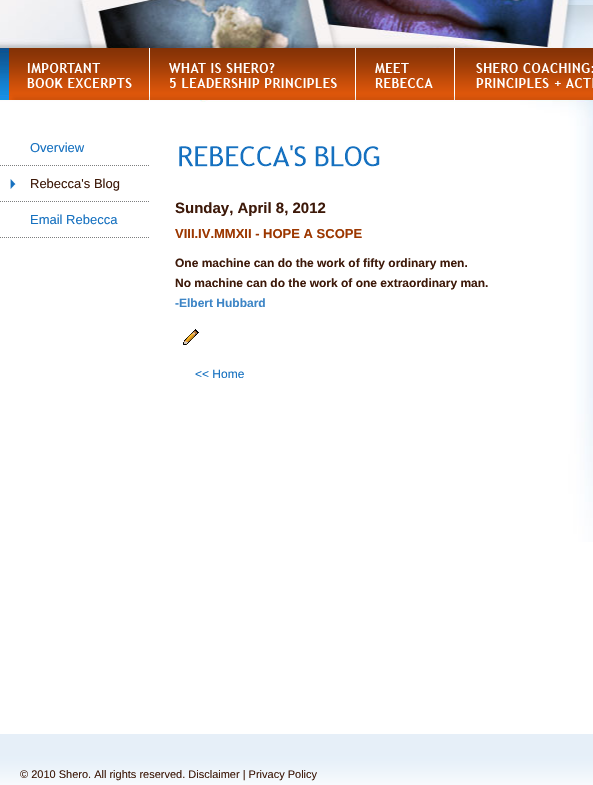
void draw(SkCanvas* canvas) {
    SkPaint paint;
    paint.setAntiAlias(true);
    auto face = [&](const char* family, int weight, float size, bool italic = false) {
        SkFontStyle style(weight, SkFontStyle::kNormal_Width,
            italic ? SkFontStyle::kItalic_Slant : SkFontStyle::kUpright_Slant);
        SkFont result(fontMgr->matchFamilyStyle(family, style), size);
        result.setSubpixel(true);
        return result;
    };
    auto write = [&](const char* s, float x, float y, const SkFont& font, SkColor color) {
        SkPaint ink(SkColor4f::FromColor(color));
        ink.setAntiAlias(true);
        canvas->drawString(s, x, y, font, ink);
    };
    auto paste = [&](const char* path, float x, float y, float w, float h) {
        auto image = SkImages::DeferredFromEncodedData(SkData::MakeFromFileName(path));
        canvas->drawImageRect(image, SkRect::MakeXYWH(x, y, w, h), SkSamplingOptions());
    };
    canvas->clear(SK_ColorWHITE);
    paste("pic1.png", 0, 0, 593, 542);
    paste("pic2.png", 0, 734, 593, 51);
    paste("pic3.png", 9, 48, 140, 52);
    paste("pic4.png", 149, 48, 206, 52);
    paste("pic5.png", 355, 48, 98, 52);
    paste("pic6.png", 453, 48, 140, 52);
    paint.setStyle(SkPaint::kStroke_Style);
    paint.setStrokeWidth(1);
    paint.setColor(SkColorSetRGB(125, 126, 127));
    paint.setPathEffect(SkDashPathEffect::Make({{1, 1}}, 0));
    canvas->drawPath(SkPathBuilder().moveTo(0, 165.5f).lineTo(150, 165.5f).detach(), paint);
    paint.setPathEffect(nullptr);
    auto kFont1 = face("Liberation Sans", 400, 13);
    write("Overview", 30, 152, kFont1, SkColorSetRGB(22, 113, 192));
    paint.setPathEffect(SkDashPathEffect::Make({{1, 1}}, 0));
    canvas->drawPath(SkPathBuilder().moveTo(0, 201.5f).lineTo(150, 201.5f).detach(), paint);
    paint.setPathEffect(nullptr);
    paste("pic7.png", 10, 179, 6, 10);
    write("Rebecca's Blog", 30, 188, kFont1, SkColorSetRGB(61, 25, 9));
    paint.setPathEffect(SkDashPathEffect::Make({{1, 1}}, 0));
    canvas->drawPath(SkPathBuilder().moveTo(0, 237.5f).lineTo(150, 237.5f).detach(), paint);
    paint.setPathEffect(nullptr);
    write("Email Rebecca", 30, 224, kFont1, SkColorSetRGB(22, 113, 192));
    paste("pic8.png", 179, 145, 201, 22);
    auto kFont2 = face("Liberation Sans", 700, 15);
    write("Sunday, April 8, 2012", 175, 213, kFont2, SkColorSetRGB(61, 25, 9));
    auto kFont3 = face("Liberation Sans", 700, 13);
    write("VIII.IV.MMXII - HOPE A SCOPE", 175, 238, kFont3, SkColorSetRGB(156, 55, 0));
    auto kFont4 = face("Liberation Sans", 700, 12);
    write("One machine can do the work of fifty ordinary men.", 175, 267, kFont4, SkColorSetRGB(61, 25, 9));
    write("No machine can do the work of one extraordinary man.", 175, 287, kFont4, SkColorSetRGB(61, 25, 9));
    write("-Elbert Hubbard", 175, 307, kFont4, SkColorSetRGB(61, 133, 198));
    paste("pic9.png", 183, 329, 16, 16);
    auto kFont5 = face("Liberation Sans", 400, 12);
    write("<< Home", 195, 378, kFont5, SkColorSetRGB(22, 113, 192));
    auto kFont6 = face("Liberation Sans", 400, 11);
    write("© 2010 Shero. All rights reserved. Disclaimer | Privacy Policy", 20, 778, kFont6, SkColorSetRGB(61, 25, 9));
}
